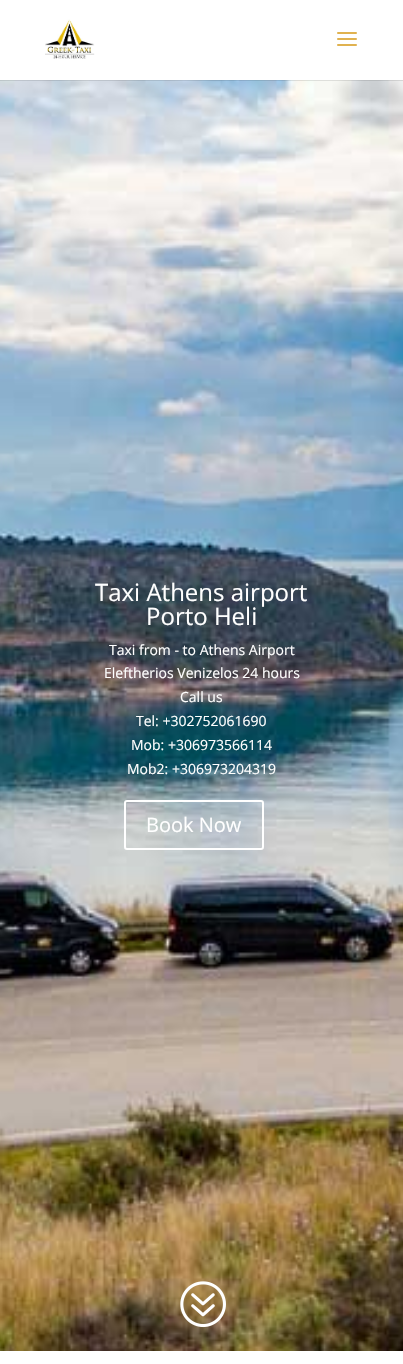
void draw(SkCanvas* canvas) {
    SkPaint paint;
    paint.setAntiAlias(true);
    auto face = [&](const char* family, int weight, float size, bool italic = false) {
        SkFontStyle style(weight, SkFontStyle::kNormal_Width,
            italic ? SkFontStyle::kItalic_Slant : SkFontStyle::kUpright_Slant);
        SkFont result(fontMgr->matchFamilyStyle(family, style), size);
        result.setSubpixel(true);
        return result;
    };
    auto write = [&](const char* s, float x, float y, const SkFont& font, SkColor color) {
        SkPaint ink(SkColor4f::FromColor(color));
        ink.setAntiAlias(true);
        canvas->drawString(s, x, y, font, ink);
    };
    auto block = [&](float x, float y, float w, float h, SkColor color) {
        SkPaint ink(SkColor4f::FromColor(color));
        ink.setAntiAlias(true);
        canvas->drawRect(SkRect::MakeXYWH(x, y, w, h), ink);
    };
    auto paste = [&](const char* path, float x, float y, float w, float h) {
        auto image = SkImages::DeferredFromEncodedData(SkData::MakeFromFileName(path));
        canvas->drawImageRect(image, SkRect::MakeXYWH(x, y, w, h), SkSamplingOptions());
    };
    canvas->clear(SK_ColorWHITE);
    paste("pic3.png", 0, 80, 403, 1271);
    block(0, 80, 403, 1, SkColorSetARGB(26, 0, 0, 0));
    paste("pic1.png", 45, 19, 50, 40);
    paste("pic2.png", 337, 32, 20, 14);
    auto kFont1 = face("Open Sans", 400, 24);
    write("Taxi Athens airport", 95, 601, kFont1, SK_ColorWHITE);
    write("Porto Heli", 146, 625, kFont1, SK_ColorWHITE);
    auto kFont2 = face("Open Sans", 400, 14);
    write("Taxi from - to Athens Airport", 109, 655, kFont2, SK_ColorWHITE);
    write("Eleftherios Venizelos 24 hours", 104, 678, kFont2, SK_ColorWHITE);
    write("Call us", 180, 702, kFont2, SK_ColorWHITE);
    write("Tel: +302752061690", 136, 726, kFont2, SK_ColorWHITE);
    write("Mob: +306973566114", 131, 750, kFont2, SK_ColorWHITE);
    write("Mob2: +306973204319", 127, 774, kFont2, SK_ColorWHITE);
    paint.setStyle(SkPaint::kStroke_Style);
    paint.setStrokeWidth(2);
    paint.setColor(SK_ColorWHITE);
    canvas->drawRoundRect(SkRect::MakeXYWH(125, 801, 138, 48), 2, 2, paint);
    auto kFont3 = face("Open Sans", 400, 20);
    write("Book Now", 146, 832, kFont3, SK_ColorWHITE);
    paste("pic4.png", 180, 1281, 46, 47);
}
